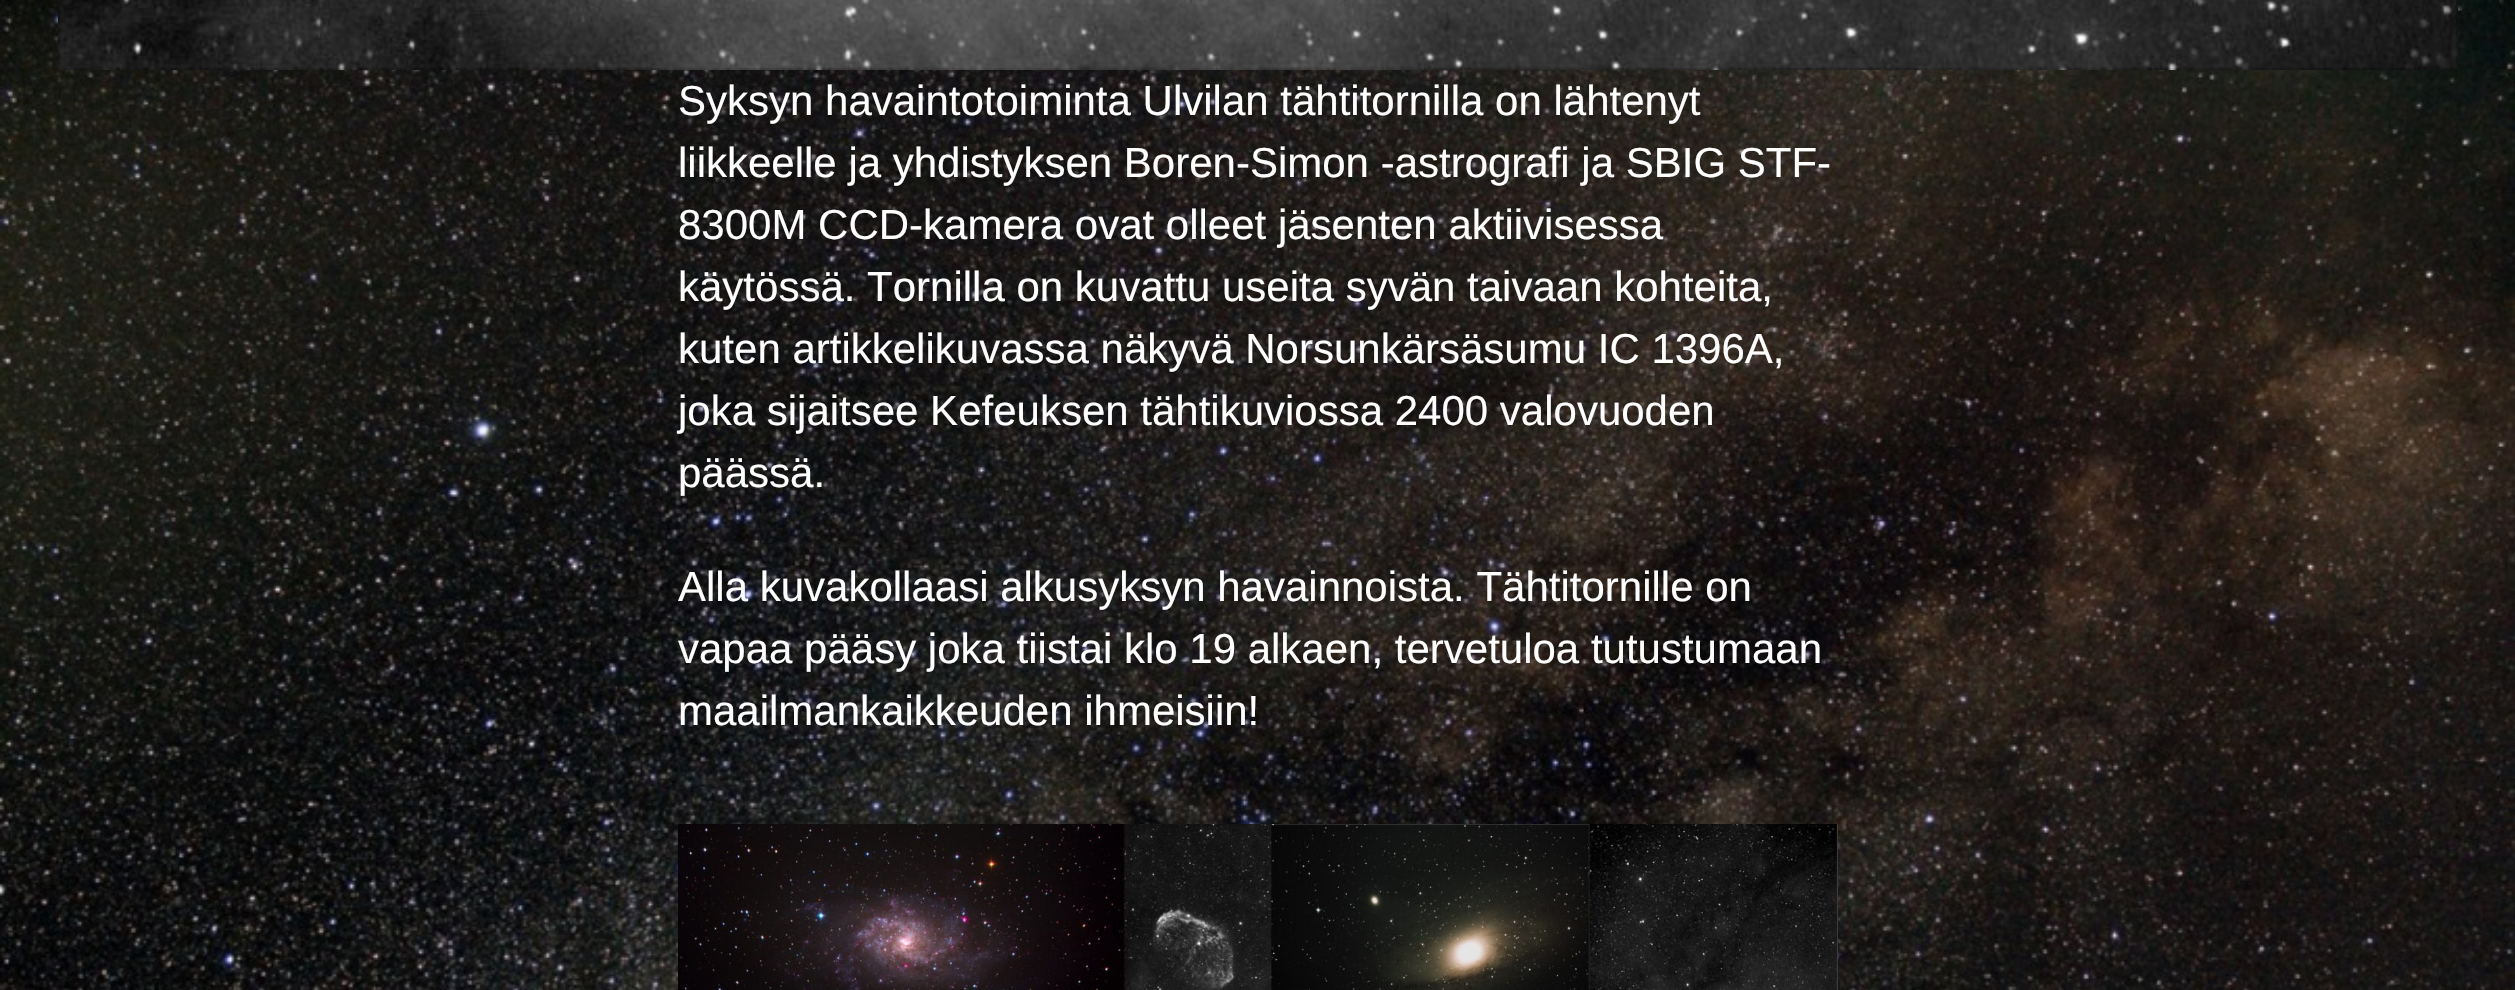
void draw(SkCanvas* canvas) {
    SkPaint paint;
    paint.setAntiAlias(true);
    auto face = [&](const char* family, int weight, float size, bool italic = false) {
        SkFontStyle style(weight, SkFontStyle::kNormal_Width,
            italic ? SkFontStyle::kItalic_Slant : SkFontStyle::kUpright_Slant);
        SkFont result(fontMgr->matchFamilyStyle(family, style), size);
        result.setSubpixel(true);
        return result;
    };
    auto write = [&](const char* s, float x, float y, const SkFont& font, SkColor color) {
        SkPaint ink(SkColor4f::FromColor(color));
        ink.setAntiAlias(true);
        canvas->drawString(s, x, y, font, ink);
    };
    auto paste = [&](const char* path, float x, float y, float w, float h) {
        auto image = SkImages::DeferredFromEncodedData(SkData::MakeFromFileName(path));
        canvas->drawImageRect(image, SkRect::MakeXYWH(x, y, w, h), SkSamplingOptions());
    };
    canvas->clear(SK_ColorWHITE);
    paste("pic1.png", 0, 0, 2515, 990);
    paste("pic2.png", 58, 0, 2400, 70);
    auto kFont1 = face("Liberation Sans", 400, 42);
    write("Syksyn havaintotoiminta Ulvilan tähtitornilla on lähtenyt", 678, 115, kFont1, SK_ColorWHITE);
    write("liikkeelle ja yhdistyksen Boren-Simon -astrografi ja SBIG STF-", 678, 177, kFont1, SK_ColorWHITE);
    write("8300M CCD-kamera ovat olleet jäsenten aktiivisessa", 678, 239, kFont1, SK_ColorWHITE);
    write("käytössä. Tornilla on kuvattu useita syvän taivaan kohteita,", 678, 301, kFont1, SK_ColorWHITE);
    write("kuten artikkelikuvassa näkyvä Norsunkärsäsumu IC 1396A,", 678, 363, kFont1, SK_ColorWHITE);
    write("joka sijaitsee Kefeuksen tähtikuviossa 2400 valovuoden", 678, 425, kFont1, SK_ColorWHITE);
    write("päässä.", 678, 487, kFont1, SK_ColorWHITE);
    write("Alla kuvakollaasi alkusyksyn havainnoista. Tähtitornille on", 678, 601, kFont1, SK_ColorWHITE);
    write("vapaa pääsy joka tiistai klo 19 alkaen, tervetuloa tutustumaan", 678, 663, kFont1, SK_ColorWHITE);
    write("maailmankaikkeuden ihmeisiin!", 678, 725, kFont1, SK_ColorWHITE);
    paste("pic3.png", 678, 824, 1160, 166);
}
